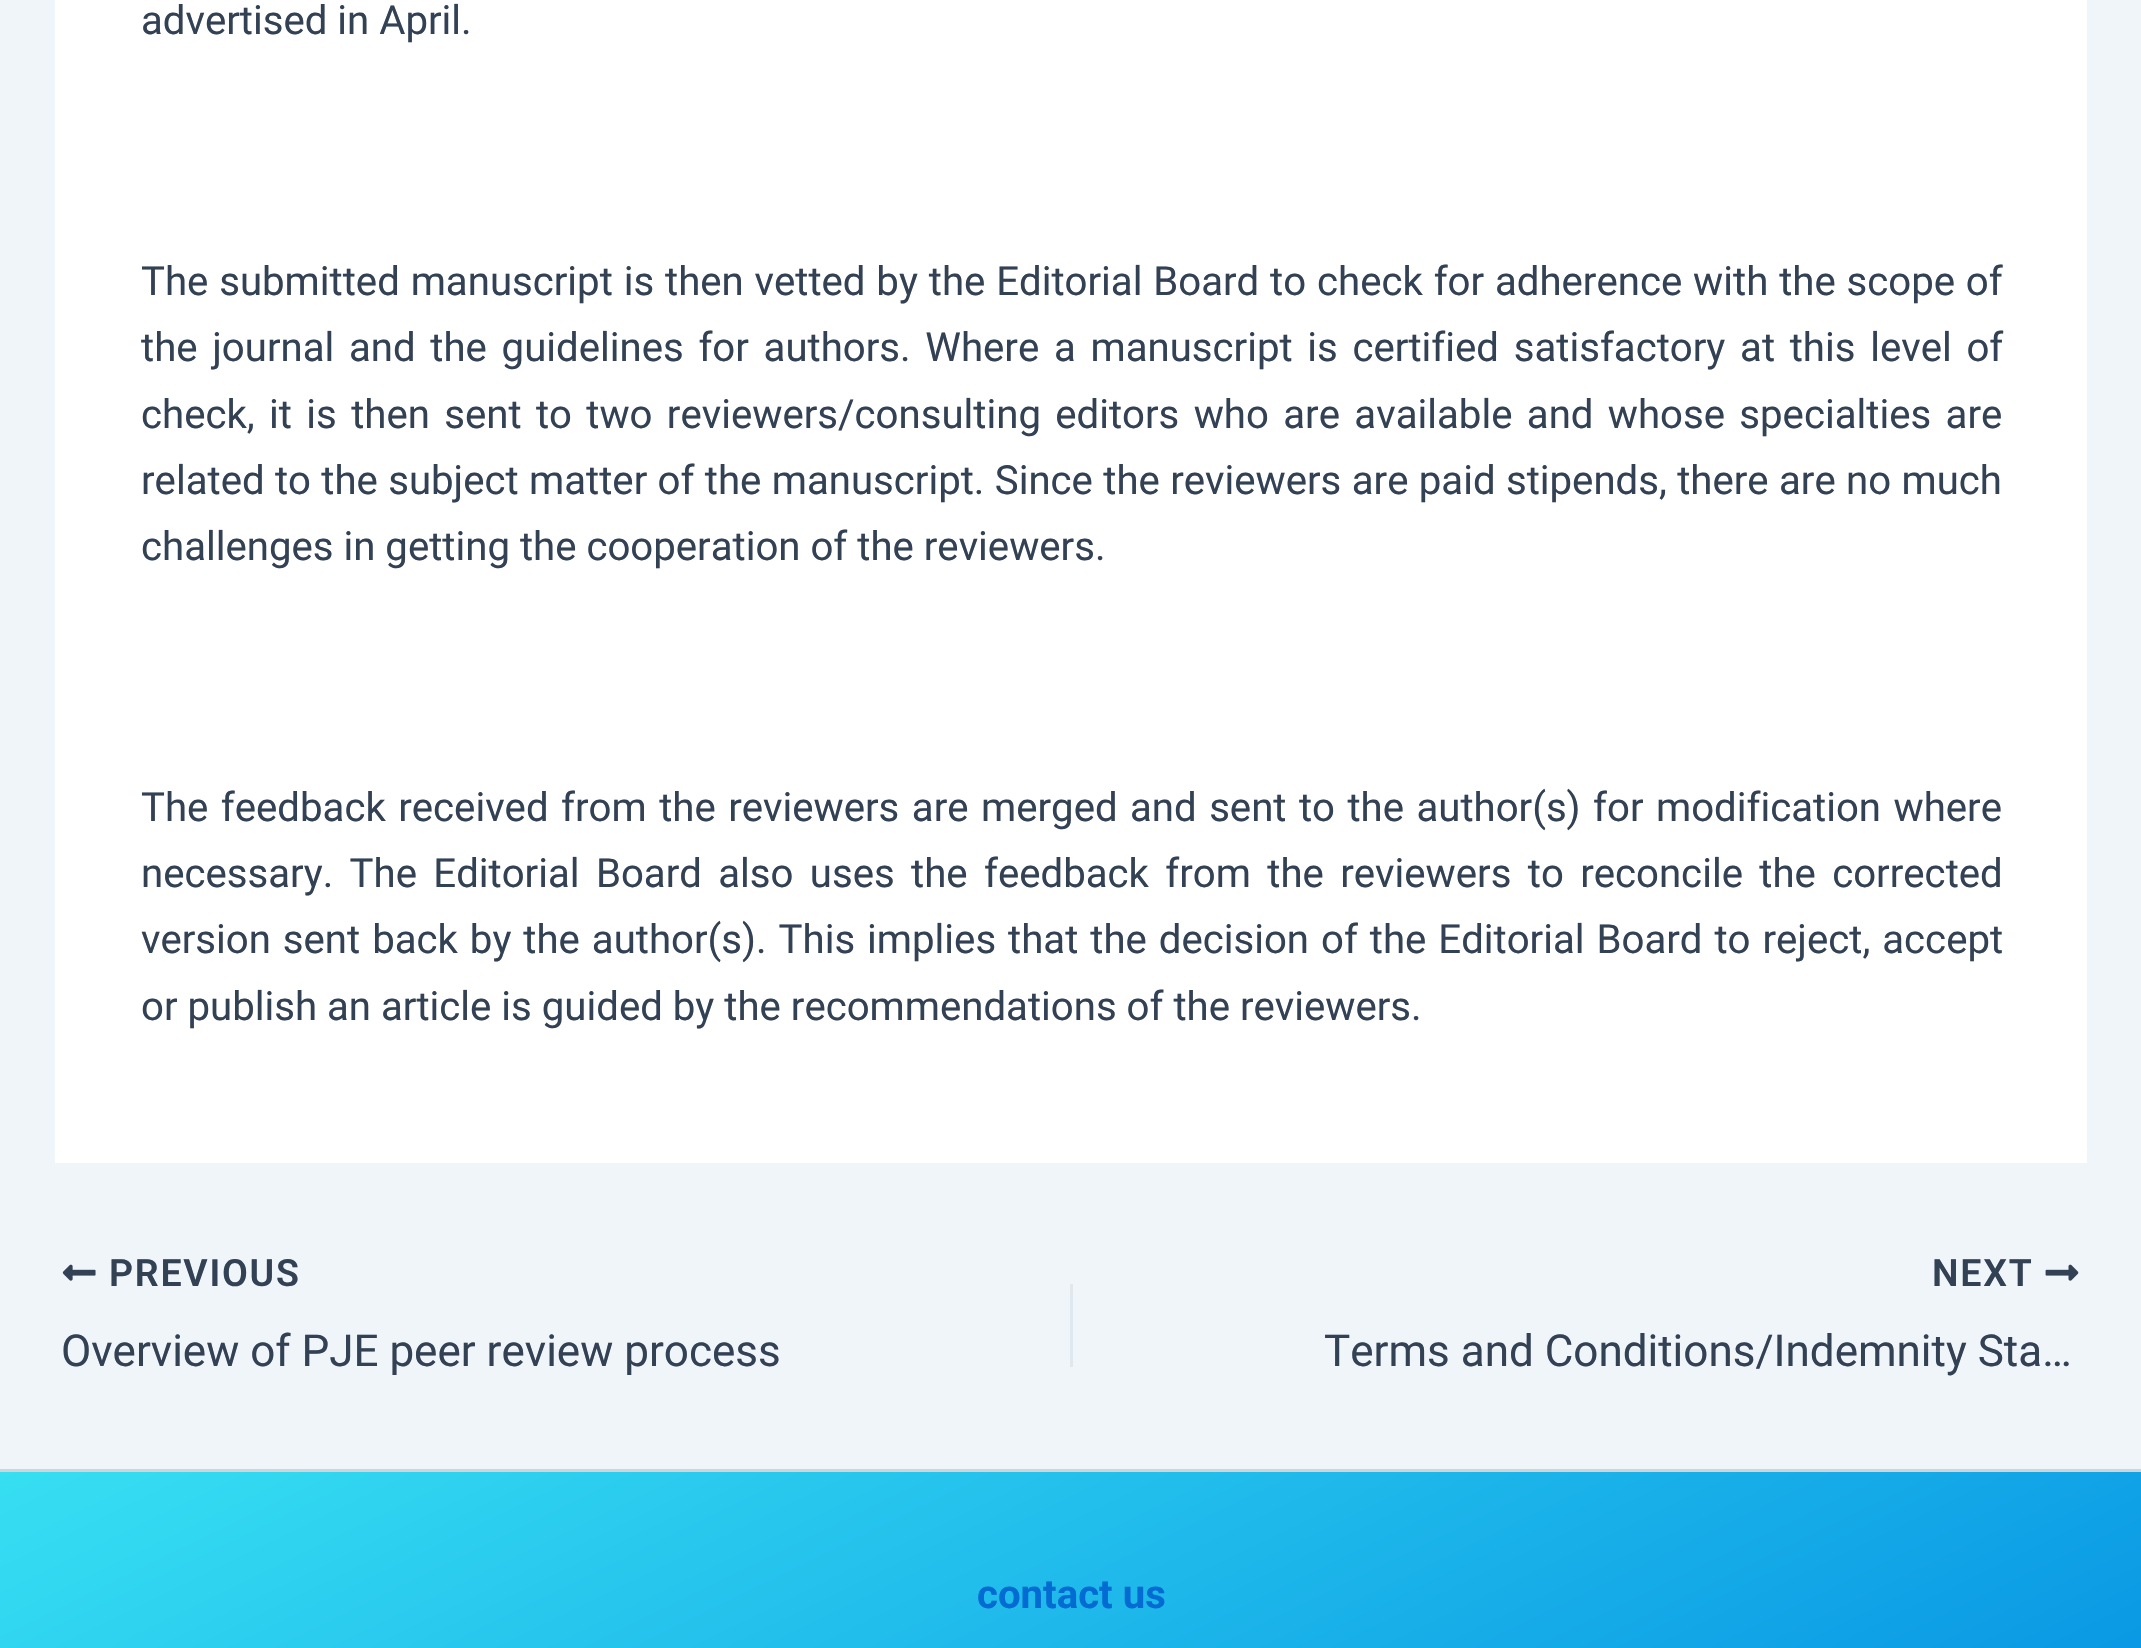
void draw(SkCanvas* canvas) {
    SkPaint paint;
    paint.setAntiAlias(true);
    auto face = [&](const char* family, int weight, float size, bool italic = false) {
        SkFontStyle style(weight, SkFontStyle::kNormal_Width,
            italic ? SkFontStyle::kItalic_Slant : SkFontStyle::kUpright_Slant);
        SkFont result(fontMgr->matchFamilyStyle(family, style), size);
        result.setSubpixel(true);
        return result;
    };
    auto write = [&](const char* s, float x, float y, const SkFont& font, SkColor color) {
        SkPaint ink(SkColor4f::FromColor(color));
        ink.setAntiAlias(true);
        canvas->drawString(s, x, y, font, ink);
    };
    auto writeSpaced = [&](const char* s, float x, float y, const SkFont& font, const SkPaint& ink, float letter, float word) {
        std::vector<SkGlyphID> glyphs(font.countText(s, strlen(s), SkTextEncoding::kUTF8));
        std::vector<float> xs(glyphs.size());
        font.textToGlyphs(s, strlen(s), SkTextEncoding::kUTF8, glyphs);
        font.getXPos(glyphs, xs, x);
        float extra = 0;
        for (size_t i = 0; i < glyphs.size(); i++) {
            xs[i] += extra;
            extra += letter + word * (glyphs[i] == font.unicharToGlyph(' '));
        }
        canvas->drawTextBlob(SkTextBlob::MakeFromPosHGlyphs(glyphs, xs, y, font), 0, 0, ink);
    };
    auto block = [&](float x, float y, float w, float h, SkColor color) {
        SkPaint ink(SkColor4f::FromColor(color));
        ink.setAntiAlias(true);
        canvas->drawRect(SkRect::MakeXYWH(x, y, w, h), ink);
    };
    auto paste = [&](const char* path, float x, float y, float w, float h) {
        auto image = SkImages::DeferredFromEncodedData(SkData::MakeFromFileName(path));
        canvas->drawImageRect(image, SkRect::MakeXYWH(x, y, w, h), SkSamplingOptions());
    };
    canvas->clear(SkColorSetRGB(240, 245, 250));
    block(55, 0, 2032, 1163, SK_ColorWHITE);
    auto kFont1 = face("Roboto", 400, 40.15f);
    write("advertised in April.", 141, 34, kFont1, SkColorSetRGB(51, 65, 85));
    paint.setColor(SkColorSetRGB(51, 65, 85));
    writeSpaced("The submitted manuscript is then vetted by the Editorial Board to check for adherence with the scope of", 141, 295, kFont1, paint, 0, 0.9f);
    writeSpaced("the journal and the guidelines for authors. Where a manuscript is certified satisfactory at this level of", 141, 361, kFont1, paint, 0, 4.75f);
    writeSpaced("check, it is then sent to two reviewers/consulting editors who are available and whose specialties are", 141, 428, kFont1, paint, 0, 4.4f);
    writeSpaced("related to the subject matter of the manuscript. Since the reviewers are paid stipends, there are no much", 141, 494, kFont1, paint, 0, 0.4f);
    write("challenges in getting the cooperation of the reviewers.", 141, 560, kFont1, SkColorSetRGB(51, 65, 85));
    writeSpaced("The feedback received from the reviewers are merged and sent to the author(s) for modification where", 141, 821, kFont1, paint, 0, 2.5f);
    writeSpaced("necessary. The Editorial Board also uses the feedback from the reviewers to reconcile the corrected", 141, 887, kFont1, paint, 0, 6.4f);
    writeSpaced("version sent back by the author(s). This implies that the decision of the Editorial Board to reject, accept", 141, 953, kFont1, paint, 0, 2);
    write("or publish an article is guided by the recommendations of the reviewers.", 141, 1020, kFont1, SkColorSetRGB(51, 65, 85));
    paste("pic1.png", 62, 1264, 34, 17);
    auto kFont2 = face("Roboto", 600, 37.5f);
    writeSpaced("PREVIOUS", 109, 1286, kFont2, paint, 1.75f, 0);
    auto kFont3 = face("Roboto", 400, 44);
    write("Overview of PJE peer review process", 61, 1366, kFont3, SkColorSetRGB(51, 65, 85));
    block(1070, 1284, 3, 83, SkColorSetRGB(225, 232, 237));
    writeSpaced("NEXT", 1932, 1286, kFont2, paint, 1.75f, 0);
    paste("pic2.png", 2045, 1264, 34, 17);
    write("Terms and Conditions/Indemnity Sta…", 1324, 1366, kFont3, SkColorSetRGB(51, 65, 85));
    {
        const SkColor colors[] = {SkColorSetRGB(6, 147, 227), SkColorSetRGB(55, 223, 242)};
        const float stops[] = {0, 1};
        const SkPoint ends[] = {{1331, 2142}, {811, 1076}};
        paint.setShader(SkGradientShader::MakeLinear(ends, colors, stops, 2, SkTileMode::kClamp));
        paint.setAlpha(255);
    }
    canvas->drawRect(SkRect::MakeXYWH(0, 1472, 2141, 176), paint);
    block(0, 1469, 2141, 3, SkColorSetRGB(209, 213, 219));
    auto kFont4 = face("Roboto", 700, 40.15f);
    write("contact us", 977, 1608, kFont4, SkColorSetRGB(4, 107, 210));
}
